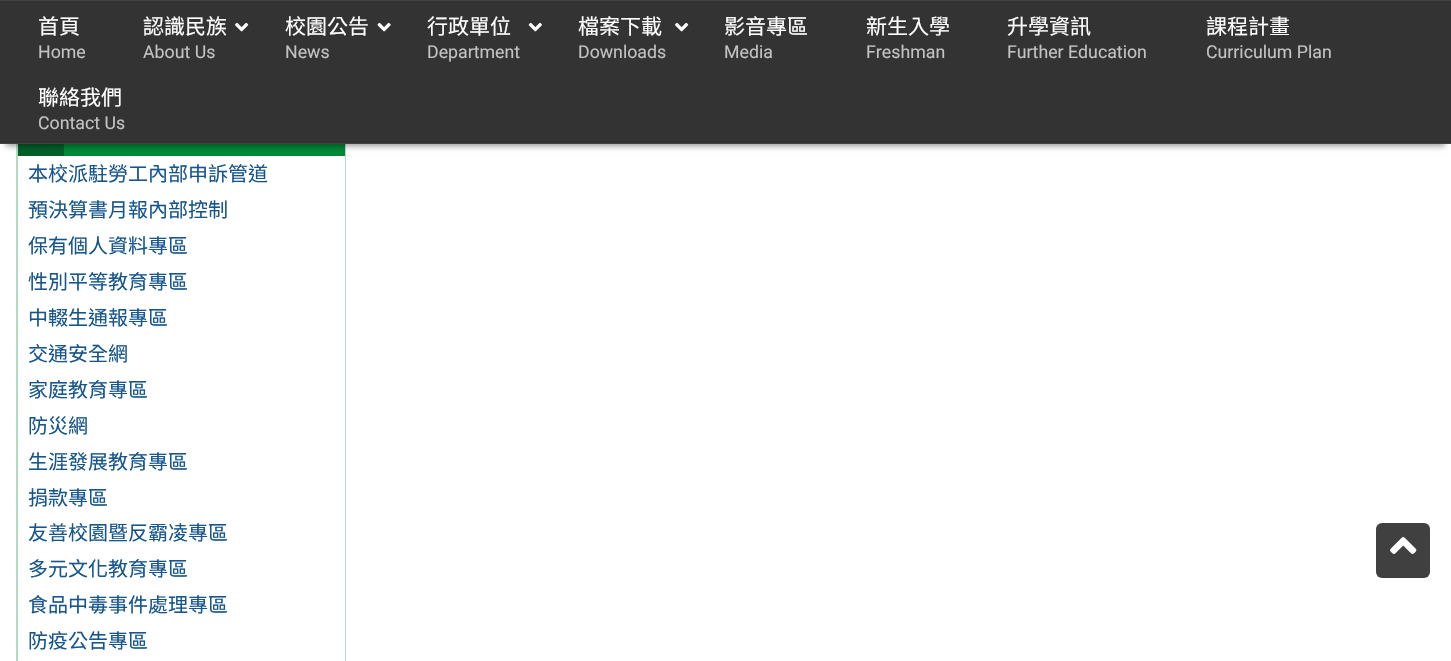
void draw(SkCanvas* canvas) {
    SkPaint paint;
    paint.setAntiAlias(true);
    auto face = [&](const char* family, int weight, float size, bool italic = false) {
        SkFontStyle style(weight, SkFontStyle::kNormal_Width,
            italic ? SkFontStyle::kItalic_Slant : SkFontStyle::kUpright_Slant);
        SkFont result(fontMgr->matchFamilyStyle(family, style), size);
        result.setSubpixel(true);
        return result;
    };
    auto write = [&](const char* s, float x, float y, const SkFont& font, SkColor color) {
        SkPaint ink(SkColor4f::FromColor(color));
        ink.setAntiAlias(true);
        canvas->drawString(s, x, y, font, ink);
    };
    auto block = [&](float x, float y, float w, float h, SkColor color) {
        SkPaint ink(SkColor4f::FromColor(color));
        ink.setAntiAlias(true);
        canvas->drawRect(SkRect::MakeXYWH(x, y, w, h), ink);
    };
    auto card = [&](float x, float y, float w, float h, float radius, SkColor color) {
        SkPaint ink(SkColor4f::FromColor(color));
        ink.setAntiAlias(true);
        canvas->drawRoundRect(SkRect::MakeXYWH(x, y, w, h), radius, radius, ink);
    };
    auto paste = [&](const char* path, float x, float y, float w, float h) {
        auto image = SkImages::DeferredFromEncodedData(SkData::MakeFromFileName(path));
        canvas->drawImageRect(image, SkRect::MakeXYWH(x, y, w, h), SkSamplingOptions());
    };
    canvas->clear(SK_ColorWHITE);
    paint.setColor(SkColorSetARGB(77, 0, 136, 55));
    canvas->drawPath(SkPathBuilder().moveTo(346, 101).lineTo(346, 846).lineTo(345, 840).lineTo(345, 102).close().detach(), paint);
    canvas->drawPath(SkPathBuilder().moveTo(16, 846).lineTo(16, 101).lineTo(18, 102).lineTo(18, 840).close().detach(), paint);
    block(64, 144, 281, 12, SkColorSetRGB(0, 136, 55));
    block(18, 144, 46, 12, SkColorSetRGB(0, 95, 39));
    paint.setColor(SkColorSetARGB(102, 0, 0, 0));
    paint.setMaskFilter(SkMaskFilter::MakeBlur(kNormal_SkBlurStyle, 3));
    canvas->drawRect(SkRect::MakeXYWH(6, 15, 1439, 131), paint);
    paint.setMaskFilter(nullptr);
    block(0, 1, 1451, 142, SkColorSetRGB(51, 51, 51));
    block(0, 0, 1451, 1, SkColorSetRGB(66, 66, 66));
    block(0, 143, 1451, 1, SkColorSetRGB(66, 66, 66));
    auto kFont1 = face("Noto Sans CJK TC", 400, 21);
    write("首頁", 38, 34, kFont1, SK_ColorWHITE);
    auto kFont2 = face("Roboto", 400, 17.75f);
    write("Home", 38, 58, kFont2, SkColorSetRGB(194, 194, 194));
    write("認識民族", 143, 34, kFont1, SK_ColorWHITE);
    paste("pic1.png", 235, 22, 14, 10);
    write("About Us", 143, 58, kFont2, SkColorSetRGB(194, 194, 194));
    write("校園公告", 285, 34, kFont1, SK_ColorWHITE);
    paste("pic2.png", 377, 22, 14, 10);
    write("News", 285, 58, kFont2, SkColorSetRGB(194, 194, 194));
    write("行政單位", 427, 34, kFont1, SK_ColorWHITE);
    paste("pic3.png", 528, 22, 14, 10);
    write("Department", 427, 58, kFont2, SkColorSetRGB(194, 194, 194));
    write("檔案下載", 578, 34, kFont1, SK_ColorWHITE);
    paste("pic1.png", 675, 22, 14, 10);
    write("Downloads", 578, 58, kFont2, SkColorSetRGB(194, 194, 194));
    write("影音專區", 724, 34, kFont1, SK_ColorWHITE);
    write("Media", 724, 58, kFont2, SkColorSetRGB(194, 194, 194));
    write("新生入學", 866, 34, kFont1, SK_ColorWHITE);
    write("Freshman", 866, 58, kFont2, SkColorSetRGB(194, 194, 194));
    write("升學資訊", 1007, 34, kFont1, SK_ColorWHITE);
    write("Further Education", 1007, 58, kFont2, SkColorSetRGB(194, 194, 194));
    write("課程計畫", 1206, 34, kFont1, SK_ColorWHITE);
    write("Curriculum Plan", 1206, 58, kFont2, SkColorSetRGB(194, 194, 194));
    write("聯絡我們", 38, 105, kFont1, SK_ColorWHITE);
    write("Contact Us", 38, 129, kFont2, SkColorSetRGB(194, 194, 194));
    auto kFont3 = face("Noto Sans CJK TC", 400, 20);
    write("本校派駐勞工內部申訴管道", 28, 181, kFont3, SkColorSetRGB(22, 86, 141));
    write("預決算書月報內部控制", 28, 217, kFont3, SkColorSetRGB(22, 86, 141));
    write("保有個人資料專區", 28, 253, kFont3, SkColorSetRGB(22, 86, 141));
    write("性別平等教育專區", 28, 289, kFont3, SkColorSetRGB(22, 86, 141));
    write("中輟生通報專區", 28, 325, kFont3, SkColorSetRGB(22, 86, 141));
    write("交通安全網", 28, 361, kFont3, SkColorSetRGB(22, 86, 141));
    write("家庭教育專區", 28, 397, kFont3, SkColorSetRGB(22, 86, 141));
    write("防災網", 28, 433, kFont3, SkColorSetRGB(22, 86, 141));
    write("生涯發展教育專區", 28, 469, kFont3, SkColorSetRGB(22, 86, 141));
    write("捐款專區", 28, 505, kFont3, SkColorSetRGB(22, 86, 141));
    write("友善校園暨反霸凌專區", 28, 540, kFont3, SkColorSetRGB(22, 86, 141));
    write("多元文化教育專區", 28, 576, kFont3, SkColorSetRGB(22, 86, 141));
    write("食品中毒事件處理專區", 28, 612, kFont3, SkColorSetRGB(22, 86, 141));
    write("防疫公告專區", 28, 648, kFont3, SkColorSetRGB(22, 86, 141));
    card(1376, 523, 54, 55, 6, SkColorSetRGB(64, 64, 64));
    paste("pic4.png", 1390, 537, 27, 17);
}
